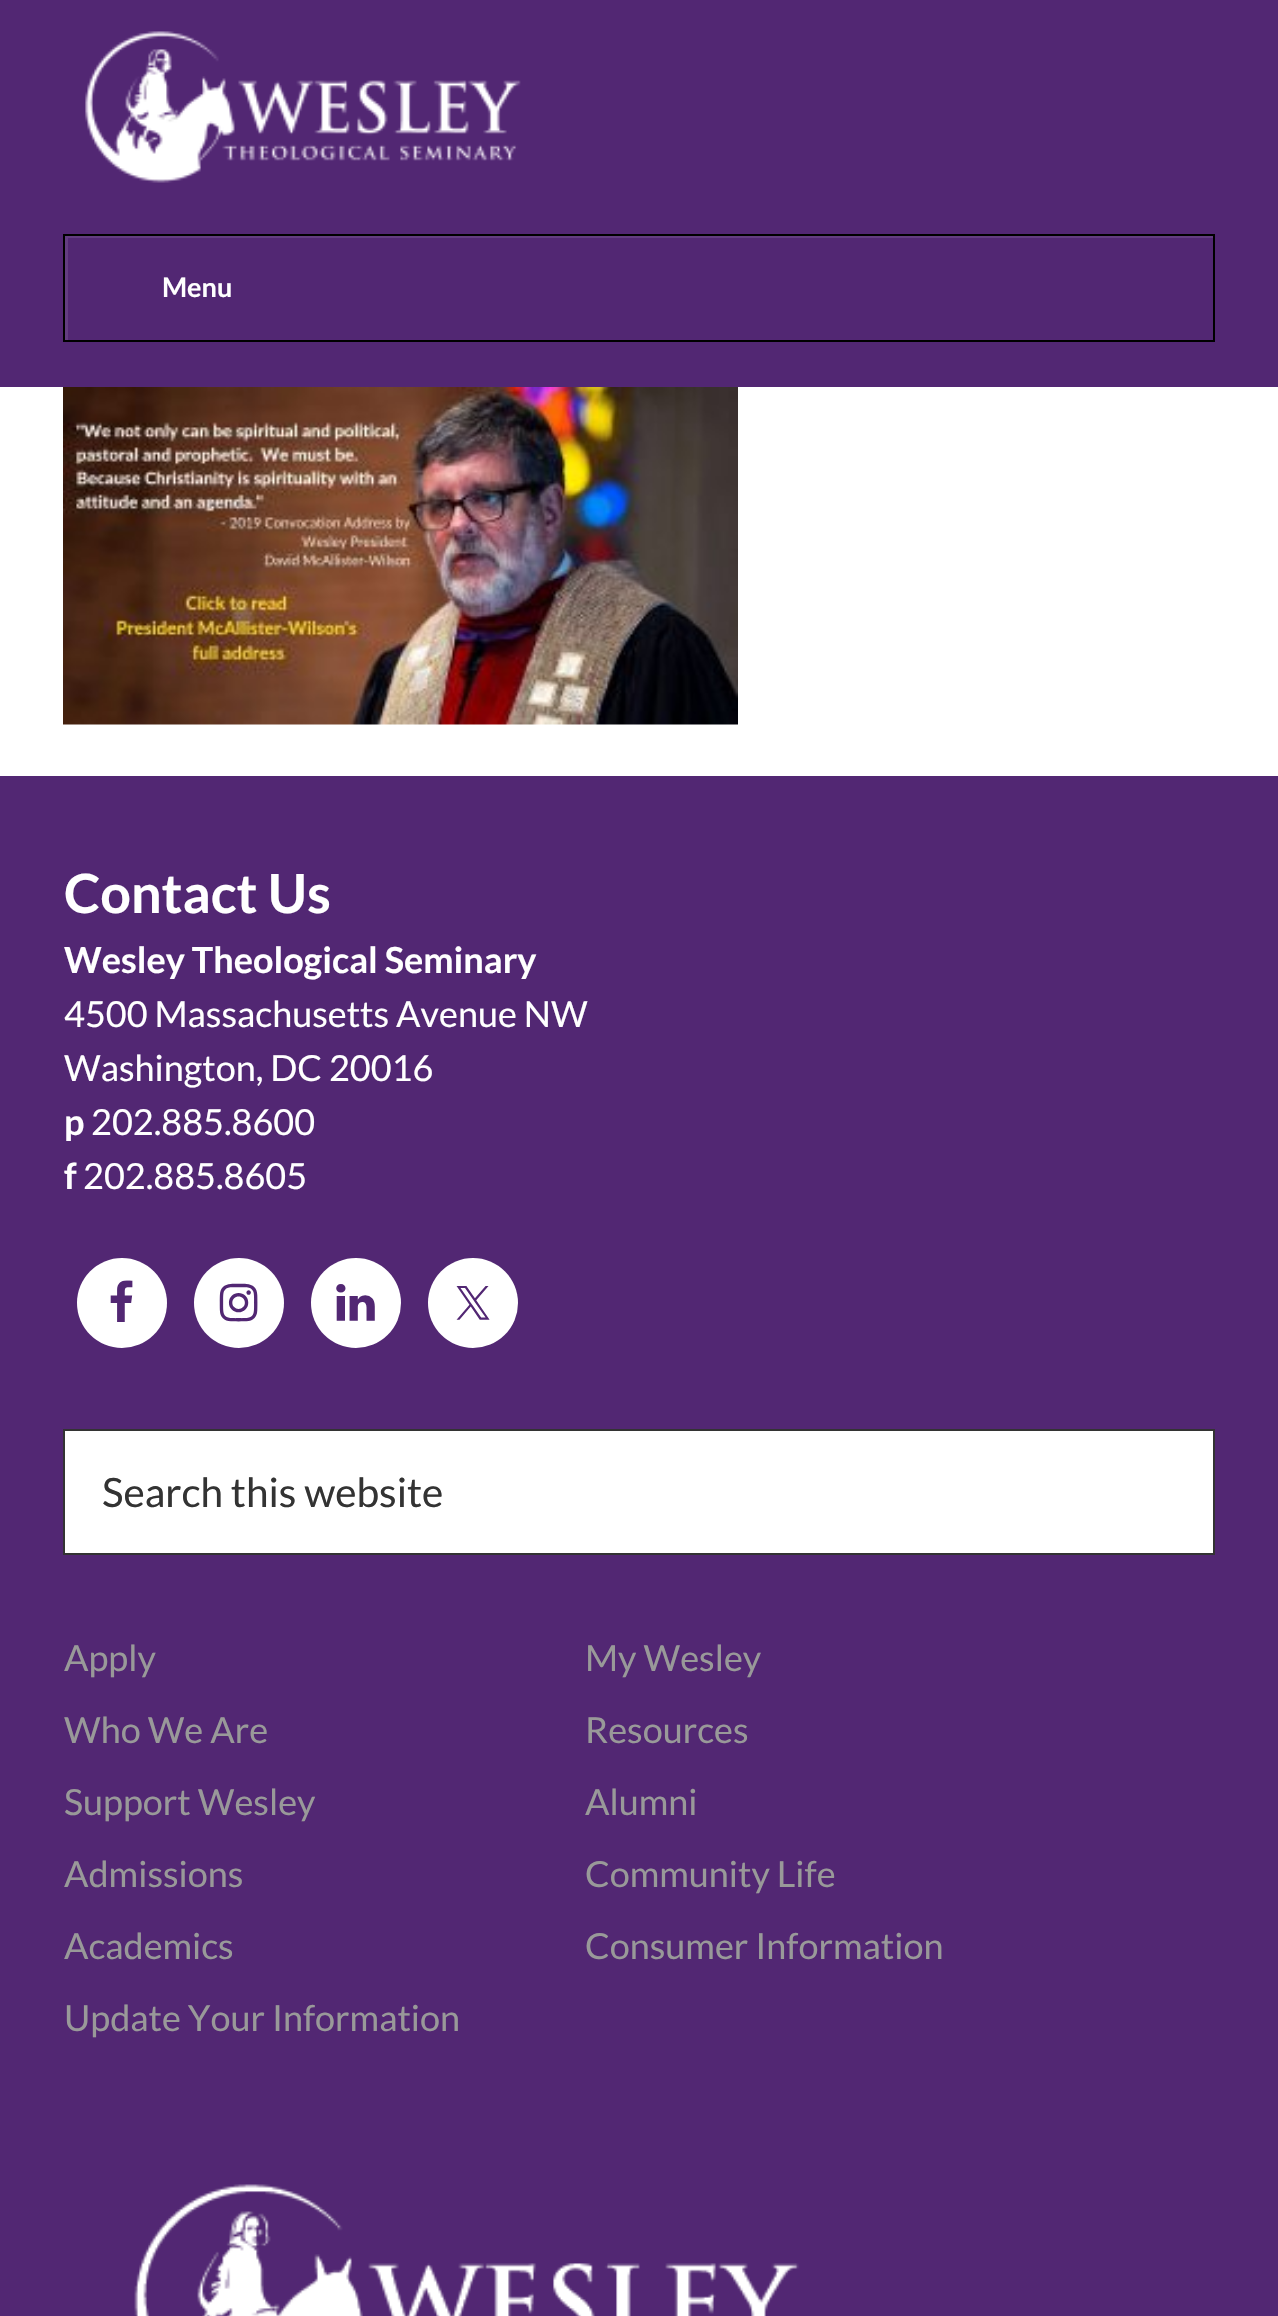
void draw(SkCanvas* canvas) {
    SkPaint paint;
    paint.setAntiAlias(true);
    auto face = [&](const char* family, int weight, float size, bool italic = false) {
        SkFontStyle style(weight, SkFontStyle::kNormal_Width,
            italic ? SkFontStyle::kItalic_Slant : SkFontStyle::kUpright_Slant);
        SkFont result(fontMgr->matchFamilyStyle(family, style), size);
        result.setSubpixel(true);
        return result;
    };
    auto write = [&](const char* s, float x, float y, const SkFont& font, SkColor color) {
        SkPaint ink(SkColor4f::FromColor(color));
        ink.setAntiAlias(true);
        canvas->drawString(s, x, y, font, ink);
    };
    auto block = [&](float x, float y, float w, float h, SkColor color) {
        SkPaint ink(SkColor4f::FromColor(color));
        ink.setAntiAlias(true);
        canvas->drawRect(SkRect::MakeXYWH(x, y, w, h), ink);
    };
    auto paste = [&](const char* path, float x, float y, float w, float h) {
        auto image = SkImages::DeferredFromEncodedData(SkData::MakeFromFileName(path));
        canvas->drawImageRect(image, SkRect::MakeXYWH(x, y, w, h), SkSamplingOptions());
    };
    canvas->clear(SK_ColorWHITE);
    block(0, 0, 1278, 387, SkColorSetRGB(82, 39, 115));
    paste("pic1.png", 85, 31, 436, 152);
    canvas->save();
    canvas->clipRect(SkRect::MakeXYWH(65, 236, 1148, 104));
    paint.setColor(SkColorSetRGB(99, 61, 129));
    canvas->drawPath(SkPathBuilder(SkPathFillType::kEvenOdd).moveTo(-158, 14).lineTo(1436, 14).lineTo(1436, 562).lineTo(-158, 562).close().moveTo(68, 238).lineTo(1215, 238).lineTo(1215, 342).lineTo(68, 342).close().detach(), paint);
    canvas->restore();
    paint.setStyle(SkPaint::kStroke_Style);
    paint.setStrokeWidth(2);
    paint.setColor(SK_ColorBLACK);
    canvas->drawRect(SkRect::MakeXYWH(64, 235, 1150, 106), paint);
    auto kFont1 = face("Lato", 700, 27);
    write("Menu", 162, 297, kFont1, SK_ColorWHITE);
    paste("pic2.png", 63, 387, 675, 338);
    block(0, 776, 1278, 1540, SkColorSetRGB(82, 39, 115));
    auto kFont2 = face("Lato", 700, 54);
    write("Contact Us", 64, 913, kFont2, SK_ColorWHITE);
    auto kFont3 = face("Lato", 700, 36);
    write("Wesley Theological Seminary", 64, 973, kFont3, SK_ColorWHITE);
    auto kFont4 = face("Lato", 400, 36);
    write("4500 Massachusetts Avenue NW", 64, 1027, kFont4, SK_ColorWHITE);
    write("Washington, DC 20016", 64, 1081, kFont4, SK_ColorWHITE);
    write("p", 64, 1135, kFont3, SK_ColorWHITE);
    write("202.885.8600", 91, 1135, kFont4, SK_ColorWHITE);
    write("f", 64, 1189, kFont3, SK_ColorWHITE);
    write("202.885.8605", 83, 1189, kFont4, SK_ColorWHITE);
    paint.setStyle(SkPaint::kFill_Style);
    paint.setColor(SK_ColorWHITE);
    canvas->drawCircle(122, 1303, 45, paint);
    paste("pic3.png", 110, 1280, 23, 42);
    canvas->drawCircle(239, 1303, 45, paint);
    paste("pic4.png", 219, 1283, 39, 39);
    canvas->drawCircle(356, 1303, 45, paint);
    paste("pic5.png", 336, 1284, 39, 37);
    canvas->drawCircle(473, 1303, 45, paint);
    paste("pic6.png", 456, 1286, 34, 34);
    canvas->drawRect(SkRect::MakeXYWH(64, 1430, 1150, 124), paint);
    paint.setStyle(SkPaint::kStroke_Style);
    paint.setColor(SkColorSetRGB(51, 51, 51));
    canvas->drawRect(SkRect::MakeXYWH(64, 1430, 1150, 124), paint);
    auto kFont5 = face("Lato", 400, 40.5f);
    write("Search this website", 102, 1507, kFont5, SkColorSetRGB(51, 51, 51));
    write("Apply", 64, 1671, kFont4, SkColorSetRGB(153, 153, 153));
    write("Who We Are", 64, 1743, kFont4, SkColorSetRGB(153, 153, 153));
    write("Support Wesley", 64, 1815, kFont4, SkColorSetRGB(153, 153, 153));
    write("Admissions", 64, 1887, kFont4, SkColorSetRGB(153, 153, 153));
    write("Academics", 64, 1959, kFont4, SkColorSetRGB(153, 153, 153));
    write("My Wesley", 585, 1671, kFont4, SkColorSetRGB(153, 153, 153));
    write("Resources", 585, 1743, kFont4, SkColorSetRGB(153, 153, 153));
    write("Alumni", 585, 1815, kFont4, SkColorSetRGB(153, 153, 153));
    write("Community Life", 585, 1887, kFont4, SkColorSetRGB(153, 153, 153));
    write("Consumer Information", 585, 1959, kFont4, SkColorSetRGB(153, 153, 153));
    write("Update Your Information", 64, 2031, kFont4, SkColorSetRGB(153, 153, 153));
    paste("pic7.png", 134, 2184, 665, 132);
}
